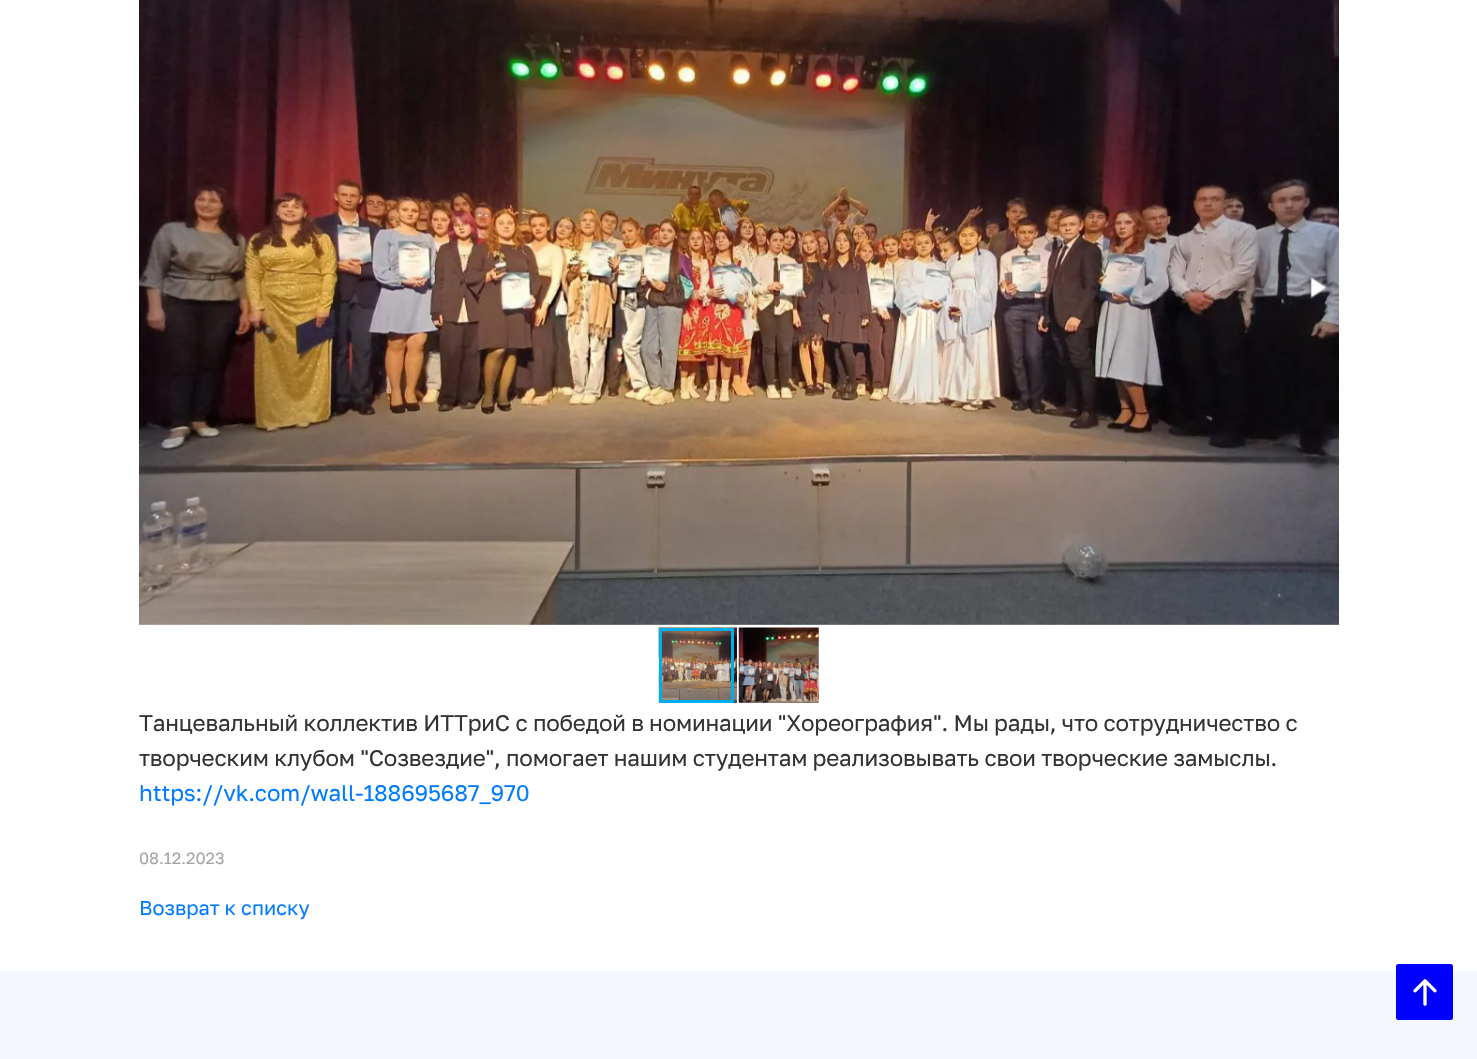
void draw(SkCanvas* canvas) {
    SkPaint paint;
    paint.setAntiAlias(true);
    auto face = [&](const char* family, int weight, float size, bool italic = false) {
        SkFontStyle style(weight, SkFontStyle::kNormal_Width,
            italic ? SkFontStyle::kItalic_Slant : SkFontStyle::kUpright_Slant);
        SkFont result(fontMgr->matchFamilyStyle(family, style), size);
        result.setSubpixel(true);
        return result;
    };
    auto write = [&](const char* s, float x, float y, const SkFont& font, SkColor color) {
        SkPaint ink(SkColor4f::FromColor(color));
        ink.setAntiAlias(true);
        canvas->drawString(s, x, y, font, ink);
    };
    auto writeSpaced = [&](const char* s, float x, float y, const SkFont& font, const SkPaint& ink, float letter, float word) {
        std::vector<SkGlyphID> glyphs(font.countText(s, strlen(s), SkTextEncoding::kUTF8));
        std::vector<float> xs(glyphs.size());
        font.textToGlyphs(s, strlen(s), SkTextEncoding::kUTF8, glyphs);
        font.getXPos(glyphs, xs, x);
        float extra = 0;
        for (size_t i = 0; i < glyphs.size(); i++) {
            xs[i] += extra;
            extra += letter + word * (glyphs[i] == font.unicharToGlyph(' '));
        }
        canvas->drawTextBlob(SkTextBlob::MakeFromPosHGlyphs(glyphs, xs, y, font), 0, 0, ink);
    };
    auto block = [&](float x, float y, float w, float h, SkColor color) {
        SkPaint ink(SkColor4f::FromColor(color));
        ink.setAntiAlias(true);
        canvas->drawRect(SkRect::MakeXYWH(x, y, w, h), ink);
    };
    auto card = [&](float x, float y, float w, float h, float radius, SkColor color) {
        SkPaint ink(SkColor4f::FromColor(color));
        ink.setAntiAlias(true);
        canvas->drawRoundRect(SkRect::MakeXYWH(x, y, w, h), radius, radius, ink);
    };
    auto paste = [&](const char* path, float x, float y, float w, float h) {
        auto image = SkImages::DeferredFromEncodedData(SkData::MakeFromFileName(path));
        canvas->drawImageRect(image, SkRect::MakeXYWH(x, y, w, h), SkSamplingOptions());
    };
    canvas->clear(SK_ColorWHITE);
    paste("pic1.png", 139, 0, 1200, 625);
    paste("pic2.png", 151, 277, 16, 21);
    paste("pic3.png", 1306, 274, 23, 25);
    paste("pic4.png", 658, 627, 79, 76);
    paste("pic5.png", 738, 627, 81, 76);
    paint.setStyle(SkPaint::kStroke_Style);
    paint.setStrokeWidth(3);
    paint.setColor(SkColorSetRGB(0, 175, 234));
    canvas->drawRect(SkRect::MakeXYWH(660.5f, 629.5f, 72, 72), paint);
    auto kFont1 = face("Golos", 400, 22.5f);
    paint.setStyle(SkPaint::kFill_Style);
    paint.setColor(SkColorSetRGB(51, 51, 51));
    writeSpaced("Танцевальный коллектив ИТТриС с победой в номинации \"Хореография\". Мы рады, что сотрудничество с", 139, 731, kFont1, paint, -0.2f, 0);
    writeSpaced("творческим клубом \"Созвездие\", помогает нашим студентам реализовывать свои творческие замыслы.", 139, 766, kFont1, paint, -0.2f, 0);
    paint.setColor(SkColorSetRGB(0, 123, 255));
    writeSpaced("https://vk.com/wall-188695687_970", 139, 801, kFont1, paint, -0.2f, 0);
    auto kFont2 = face("Golos", 400, 16.25f);
    write("08.12.2023", 139, 864, kFont2, SkColorSetRGB(164, 164, 164));
    auto kFont3 = face("Golos", 400, 20);
    write("Возврат к списку", 139, 915, kFont3, SkColorSetRGB(0, 123, 255));
    block(0, 971, 1477, 88, SkColorSetRGB(244, 247, 251));
    card(1396, 964, 57, 56, 2.5f, SkColorSetRGB(0, 0, 255));
    paste("pic6.png", 1413, 979, 24, 27);
}
